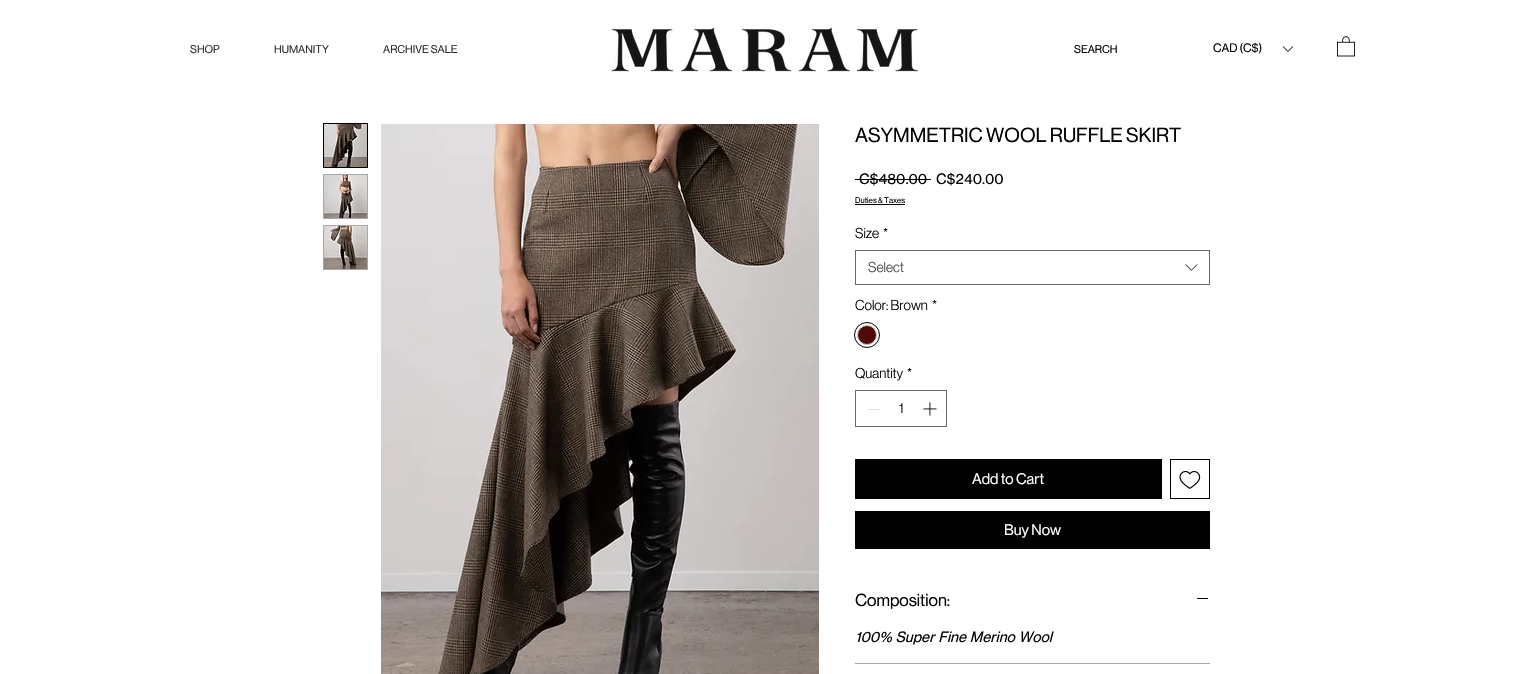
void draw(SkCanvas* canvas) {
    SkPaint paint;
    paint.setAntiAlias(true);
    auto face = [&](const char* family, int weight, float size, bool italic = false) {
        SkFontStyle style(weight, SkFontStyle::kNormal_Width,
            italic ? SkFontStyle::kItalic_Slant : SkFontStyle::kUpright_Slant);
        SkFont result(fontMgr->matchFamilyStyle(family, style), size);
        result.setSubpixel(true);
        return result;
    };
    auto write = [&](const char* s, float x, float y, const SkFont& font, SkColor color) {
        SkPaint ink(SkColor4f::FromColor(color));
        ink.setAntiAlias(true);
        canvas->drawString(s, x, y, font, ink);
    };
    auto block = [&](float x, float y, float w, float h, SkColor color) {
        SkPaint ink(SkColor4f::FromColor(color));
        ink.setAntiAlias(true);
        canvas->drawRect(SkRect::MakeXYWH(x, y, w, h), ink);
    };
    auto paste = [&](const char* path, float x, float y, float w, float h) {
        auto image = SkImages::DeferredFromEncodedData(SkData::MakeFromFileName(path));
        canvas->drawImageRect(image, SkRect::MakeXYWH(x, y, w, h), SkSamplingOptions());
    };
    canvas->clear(SK_ColorWHITE);
    auto kFont1 = face("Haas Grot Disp", 400, 11);
    write("SHOP", 190, 53, kFont1, SkColorSetRGB(46, 48, 47));
    write("HUMANITY", 274, 53, kFont1, SkColorSetRGB(46, 48, 47));
    write("ARCHIVE SALE", 383, 53, kFont1, SkColorSetRGB(46, 48, 47));
    paste("pic1.png", 611, 27, 308, 45);
    write("SEARCH", 1074, 53, kFont1, SK_ColorBLACK);
    auto kFont2 = face("Haas Grot Disp", 400, 12);
    write("CAD (C$)", 1213, 52, kFont2, SK_ColorBLACK);
    paste("pic2.png", 1282, 46, 12, 6);
    paste("pic3.png", 1337, 36, 18, 21);
    paint.setStyle(SkPaint::kStroke_Style);
    paint.setStrokeWidth(1);
    paint.setColor(SK_ColorBLACK);
    canvas->drawRect(SkRect::MakeXYWH(323.5f, 123.5f, 44, 44), paint);
    paste("pic4.png", 324, 124, 43, 43);
    block(323, 174, 45, 45, SkColorSetRGB(167, 168, 167));
    paste("pic5.png", 324, 175, 43, 43);
    block(323, 225, 45, 45, SkColorSetRGB(167, 168, 167));
    paste("pic6.png", 324, 226, 43, 43);
    paste("pic7.png", 381, 124, 438, 550);
    auto kFont3 = face("Haas Grot Disp", 400, 20);
    write("ASYMMETRIC WOOL RUFFLE SKIRT", 855, 142, kFont3, SK_ColorBLACK);
    auto kFont4 = face("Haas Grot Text", 400, 14);
    write("C$480.00", 859, 184, kFont4, SK_ColorBLACK);
    block(855, 179, 76, 1, SK_ColorBLACK);
    write("C$240.00", 936, 184, kFont4, SK_ColorBLACK);
    auto kFont5 = face("Haas Grot Disp", 400, 8);
    write("Duties & Taxes", 855, 203, kFont5, SK_ColorBLACK);
    block(855, 204, 50, 1, SK_ColorBLACK);
    auto kFont6 = face("Haas Grot Disp", 300, 14);
    write("Size", 855, 238, kFont6, SK_ColorBLACK);
    write("*", 883, 238, kFont6, SK_ColorBLACK);
    paint.setColor(SkColorSetRGB(102, 102, 102));
    canvas->drawRect(SkRect::MakeXYWH(855.5f, 250.5f, 354, 34), paint);
    write("Select", 868, 272, kFont6, SkColorSetRGB(68, 68, 68));
    paste("pic8.png", 1185, 264, 13, 7);
    write("Color: Brown", 855, 310, kFont6, SK_ColorBLACK);
    write("*", 932, 310, kFont6, SK_ColorBLACK);
    paint.setColor(SK_ColorBLACK);
    canvas->drawCircle(867, 335, 12.5f, paint);
    paint.setStyle(SkPaint::kFill_Style);
    paint.setColor(SkColorSetRGB(79, 9, 9));
    canvas->drawCircle(867, 335, 9.5f, paint);
    paint.setStyle(SkPaint::kStroke_Style);
    paint.setColor(SkColorSetRGB(201, 201, 201));
    canvas->drawCircle(867, 335, 9.5f, paint);
    write("Quantity", 855, 378, kFont6, SK_ColorBLACK);
    write("*", 907, 378, kFont6, SK_ColorBLACK);
    paint.setColor(SkColorSetRGB(102, 102, 102));
    canvas->drawRect(SkRect::MakeXYWH(855.5f, 390.5f, 91, 36), paint);
    block(867, 409, 13, 1, SkColorSetRGB(227, 227, 227));
    write("1", 899, 413, kFont6, SK_ColorBLACK);
    paste("pic9.png", 923, 402, 14, 14);
    block(855, 459, 307, 40, SK_ColorBLACK);
    auto kFont7 = face("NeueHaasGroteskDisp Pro", 400, 15);
    write("Add to Cart", 972, 484, kFont7, SK_ColorWHITE);
    paint.setColor(SK_ColorBLACK);
    canvas->drawRect(SkRect::MakeXYWH(1170.5f, 459.5f, 39, 39), paint);
    paste("pic10.png", 1179, 471, 22, 18);
    block(855, 511, 355, 38, SK_ColorBLACK);
    auto kFont8 = face("Haas Grot Disp", 400, 15);
    write("Buy Now", 1004, 535, kFont8, SK_ColorWHITE);
    block(855, 663, 355, 1, SkColorSetRGB(167, 168, 167));
    auto kFont9 = face("Haas Grot Disp", 400, 17);
    write("Composition:", 855, 606, kFont9, SK_ColorBLACK);
    block(1197, 598, 11, 1, SK_ColorBLACK);
    auto kFont10 = face("Haas Grot Text", 400, 14, true);
    write("100% Super Fine Merino Wool", 855, 642, kFont10, SK_ColorBLACK);
}
